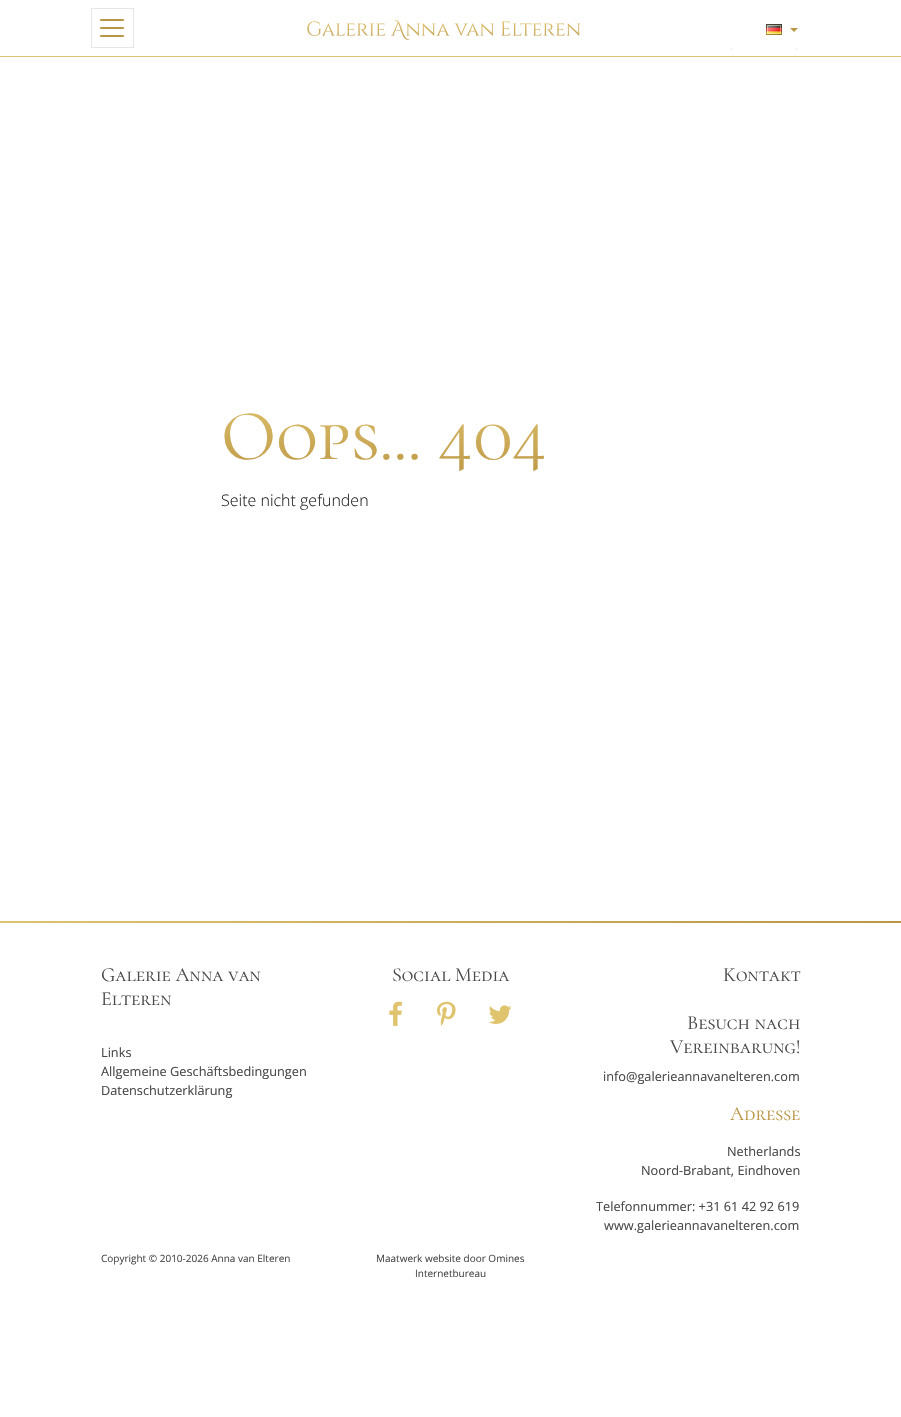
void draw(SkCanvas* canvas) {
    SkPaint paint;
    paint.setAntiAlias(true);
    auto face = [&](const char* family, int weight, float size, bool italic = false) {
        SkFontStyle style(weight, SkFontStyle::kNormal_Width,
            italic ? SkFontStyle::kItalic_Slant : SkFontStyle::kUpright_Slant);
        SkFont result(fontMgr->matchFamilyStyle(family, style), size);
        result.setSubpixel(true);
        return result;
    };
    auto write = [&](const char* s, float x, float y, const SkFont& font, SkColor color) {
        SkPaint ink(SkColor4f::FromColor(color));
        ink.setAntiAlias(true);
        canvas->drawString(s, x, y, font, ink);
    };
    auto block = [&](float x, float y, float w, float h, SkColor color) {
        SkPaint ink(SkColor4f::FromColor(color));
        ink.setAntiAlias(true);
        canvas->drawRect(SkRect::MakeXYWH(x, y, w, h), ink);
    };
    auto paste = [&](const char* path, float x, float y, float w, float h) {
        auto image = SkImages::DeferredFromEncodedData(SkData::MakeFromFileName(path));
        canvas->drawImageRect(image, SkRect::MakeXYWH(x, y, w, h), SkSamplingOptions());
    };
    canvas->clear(SK_ColorWHITE);
    block(0, 56, 901, 1, SkColorSetRGB(224, 195, 109));
    paint.setStyle(SkPaint::kStroke_Style);
    paint.setStrokeWidth(1);
    paint.setColor(SkColorSetRGB(230, 230, 230));
    canvas->drawRect(SkRect::MakeXYWH(91.5f, 8.5f, 42, 39), paint);
    paste("pic1.png", 100, 19, 24, 18);
    paste("pic2.png", 307, 20, 274, 20);
    paste("pic3.png", 766, 24, 16, 11);
    paint.setStyle(SkPaint::kFill_Style);
    paint.setColor(SkColorSetRGB(187, 150, 69));
    canvas->drawPath(SkPathBuilder().moveTo(790, 28).lineTo(798, 28).lineTo(794, 32).close().detach(), paint);
    paint.setColor(SkColorSetRGB(217, 217, 217));
    canvas->drawPath(SkPathBuilder().moveTo(797, 48).lineTo(797, 50).lineTo(796, 49).close().detach(), paint);
    canvas->drawPath(SkPathBuilder().moveTo(731, 50).lineTo(731, 48).lineTo(732, 49).close().detach(), paint);
    auto kFont1 = face("Cormorant SC", 400, 72);
    {
        const SkColor colors[] = {SkColorSetRGB(187, 150, 69), SkColorSetRGB(224, 195, 109)};
        const float stops[] = {0, 1};
        const SkPoint ends[] = {{451, 480}, {451, 393}};
        paint.setShader(SkGradientShader::MakeLinear(ends, colors, stops, 2, SkTileMode::kClamp));
        paint.setAlpha(255);
    }
    canvas->drawString("Oops... 404", 221, 459, kFont1, paint);
    auto kFont2 = face("Open Sans", 300, 16);
    write("Seite nicht gefunden", 221, 506, kFont2, SkColorSetRGB(36, 36, 36));
    {
        const SkColor colors[] = {SkColorSetRGB(224, 195, 109), SkColorSetRGB(187, 150, 69)};
        const float stops[] = {0, 1};
        const SkPoint ends[] = {{0, 922}, {901, 922}};
        paint.setShader(SkGradientShader::MakeLinear(ends, colors, stops, 2, SkTileMode::kClamp));
        paint.setAlpha(255);
    }
    canvas->drawRect(SkRect::MakeXYWH(0, 921, 901, 2), paint);
    auto kFont3 = face("Cormorant SC", 400, 20);
    write("Galerie Anna van", 101, 981, kFont3, SkColorSetRGB(72, 72, 72));
    write("Elteren", 101, 1005, kFont3, SkColorSetRGB(72, 72, 72));
    auto kFont4 = face("Open Sans", 400, 12.75f);
    write("Links", 101, 1057, kFont4, SkColorSetRGB(72, 72, 72));
    write("Allgemeine Geschäftsbedingungen", 101, 1076, kFont4, SkColorSetRGB(72, 72, 72));
    write("Datenschutzerklärung", 101, 1095, kFont4, SkColorSetRGB(72, 72, 72));
    write("Social Media", 392, 981, kFont3, SkColorSetRGB(72, 72, 72));
    paste("pic4.png", 389, 1001, 13, 25);
    paste("pic5.png", 437, 1001, 19, 25);
    paste("pic6.png", 489, 1005, 23, 19);
    write("Kontakt", 723, 981, kFont3, SkColorSetRGB(72, 72, 72));
    write("Besuch nach", 687, 1029, kFont3, SkColorSetRGB(72, 72, 72));
    write("Vereinbarung!", 670, 1053, kFont3, SkColorSetRGB(72, 72, 72));
    write("info@galerieannavanelteren.com", 603, 1081, kFont4, SkColorSetRGB(72, 72, 72));
    write("Adresse", 730, 1120, kFont3, SkColorSetRGB(187, 150, 69));
    write("Netherlands", 727, 1156, kFont4, SkColorSetRGB(72, 72, 72));
    write("Noord-Brabant, Eindhoven", 641, 1175, kFont4, SkColorSetRGB(72, 72, 72));
    write("Telefonnummer: +31 61 42 92 619", 596, 1211, kFont4, SkColorSetRGB(72, 72, 72));
    write("www.galerieannavanelteren.com", 604, 1230, kFont4, SkColorSetRGB(72, 72, 72));
    auto kFont5 = face("Open Sans", 400, 10);
    write("Copyright © 2010-2026 Anna van Elteren", 101, 1262, kFont5, SkColorSetRGB(72, 72, 72));
    write("Maatwerk website door Omines", 376, 1262, kFont5, SkColorSetRGB(72, 72, 72));
    write("Internetbureau", 415, 1277, kFont5, SkColorSetRGB(72, 72, 72));
}
